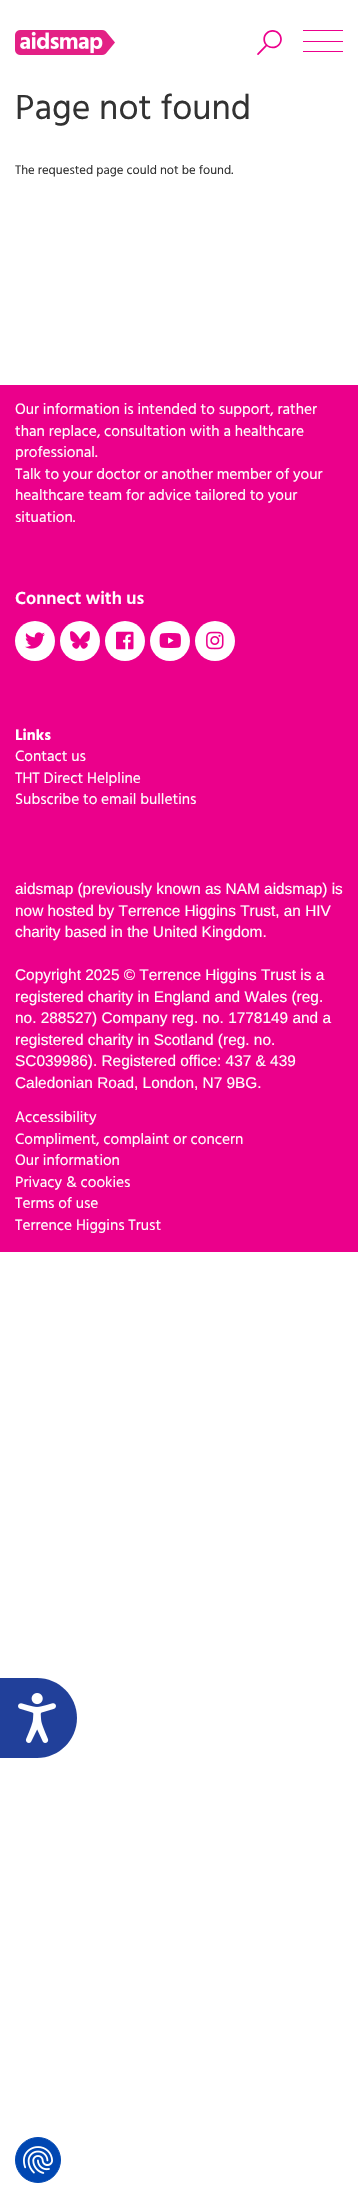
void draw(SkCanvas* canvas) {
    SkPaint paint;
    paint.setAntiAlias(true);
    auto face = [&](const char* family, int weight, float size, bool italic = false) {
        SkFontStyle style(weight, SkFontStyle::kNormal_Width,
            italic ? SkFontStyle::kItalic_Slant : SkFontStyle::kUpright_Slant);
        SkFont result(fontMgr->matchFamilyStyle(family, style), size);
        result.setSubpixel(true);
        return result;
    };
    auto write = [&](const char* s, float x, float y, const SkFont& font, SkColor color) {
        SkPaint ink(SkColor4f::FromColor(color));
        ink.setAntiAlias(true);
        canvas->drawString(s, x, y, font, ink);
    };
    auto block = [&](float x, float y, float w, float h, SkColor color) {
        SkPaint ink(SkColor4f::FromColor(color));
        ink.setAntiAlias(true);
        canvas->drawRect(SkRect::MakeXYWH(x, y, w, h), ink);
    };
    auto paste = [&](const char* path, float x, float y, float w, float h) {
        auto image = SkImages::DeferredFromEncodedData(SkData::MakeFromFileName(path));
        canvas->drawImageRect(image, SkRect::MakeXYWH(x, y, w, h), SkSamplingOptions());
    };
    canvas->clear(SK_ColorWHITE);
    paste("pic1.png", 15, 30, 100, 25);
    paste("pic2.png", 257, 30, 25, 25);
    block(303, 30, 40, 1, SkColorSetRGB(236, 0, 140));
    block(303, 51, 40, 1, SkColorSetRGB(236, 0, 140));
    block(303, 41, 40, 1, SkColorSetRGB(236, 0, 140));
    auto kFont1 = face("Hind", 400, 35.75f);
    write("Page not found", 15, 119, kFont1, SkColorSetRGB(50, 50, 50));
    auto kFont2 = face("Hind", 400, 12.75f);
    write("The requested page could not be found.", 15, 174, kFont2, SkColorSetRGB(50, 50, 50));
    block(0, 385, 358, 867, SkColorSetRGB(235, 0, 139));
    auto kFont3 = face("Hind", 400, 15.4f);
    write("Our information is intended to support, rather", 15, 414, kFont3, SK_ColorWHITE);
    write("than replace, consultation with a healthcare", 15, 436, kFont3, SK_ColorWHITE);
    write("professional.", 15, 457, kFont3, SK_ColorWHITE);
    write("Talk to your doctor or another member of your", 15, 479, kFont3, SK_ColorWHITE);
    write("healthcare team for advice tailored to your", 15, 500, kFont3, SK_ColorWHITE);
    write("situation.", 15, 522, kFont3, SK_ColorWHITE);
    auto kFont4 = face("Hind", 600, 18);
    write("Connect with us", 15, 604, kFont4, SK_ColorWHITE);
    paint.setColor(SK_ColorWHITE);
    canvas->drawCircle(35, 641, 20, paint);
    paste("pic3.png", 25, 632, 20, 17);
    canvas->drawCircle(80, 641, 20, paint);
    paste("pic4.png", 70, 631, 20, 18);
    canvas->drawCircle(125, 641, 20, paint);
    paste("pic5.png", 116, 631, 18, 19);
    canvas->drawCircle(170, 641, 20, paint);
    paste("pic6.png", 159, 633, 22, 15);
    canvas->drawCircle(215, 641, 20, paint);
    paste("pic7.png", 206, 631, 18, 19);
    auto kFont5 = face("Hind", 700, 15.4f);
    write("Links", 15, 740, kFont5, SK_ColorWHITE);
    write("Contact us", 15, 761, kFont3, SK_ColorWHITE);
    write("THT Direct Helpline", 15, 783, kFont3, SK_ColorWHITE);
    write("Subscribe to email bulletins", 15, 804, kFont3, SK_ColorWHITE);
    auto kFont6 = face("Liberation Sans", 400, 15.4f);
    write("aidsmap (previously known as NAM aidsmap) is", 15, 894, kFont6, SK_ColorWHITE);
    write("now hosted by Terrence Higgins Trust, an HIV", 15, 916, kFont6, SK_ColorWHITE);
    write("charity based in the United Kingdom.", 15, 937, kFont6, SK_ColorWHITE);
    write("Copyright 2025 © Terrence Higgins Trust is a", 15, 980, kFont6, SK_ColorWHITE);
    write("registered charity in England and Wales (reg.", 15, 1002, kFont6, SK_ColorWHITE);
    write("no. 288527) Company reg. no. 1778149 and a", 15, 1023, kFont6, SK_ColorWHITE);
    write("registered charity in Scotland (reg. no.", 15, 1045, kFont6, SK_ColorWHITE);
    write("SC039986). Registered office: 437 & 439", 15, 1066, kFont6, SK_ColorWHITE);
    write("Caledonian Road, London, N7 9BG.", 15, 1088, kFont6, SK_ColorWHITE);
    write("Accessibility", 15, 1122, kFont3, SK_ColorWHITE);
    write("Compliment, complaint or concern", 15, 1144, kFont3, SK_ColorWHITE);
    write("Our information", 15, 1165, kFont3, SK_ColorWHITE);
    write("Privacy & cookies", 15, 1187, kFont3, SK_ColorWHITE);
    write("Terms of use", 15, 1208, kFont3, SK_ColorWHITE);
    write("Terrence Higgins Trust", 15, 1230, kFont3, SK_ColorWHITE);
    paint.setColor(SkColorSetRGB(33, 64, 154));
    canvas->drawPath(SkPathBuilder().moveTo(0, 1678).lineTo(37, 1678).cubicTo(59, 1678, 77, 1696, 77, 1718).cubicTo(77, 1740, 59, 1758, 37, 1758).lineTo(0, 1758).close().detach(), paint);
    paste("pic8.png", 18, 1693, 38, 50);
    paint.setColor(SkColorSetRGB(0, 71, 178));
    canvas->drawCircle(38, 2160, 22.5f, paint);
    paint.setStyle(SkPaint::kStroke_Style);
    paint.setStrokeWidth(1);
    canvas->drawCircle(38, 2160, 22.5f, paint);
    paste("pic9.png", 23, 2146, 30, 28);
}
